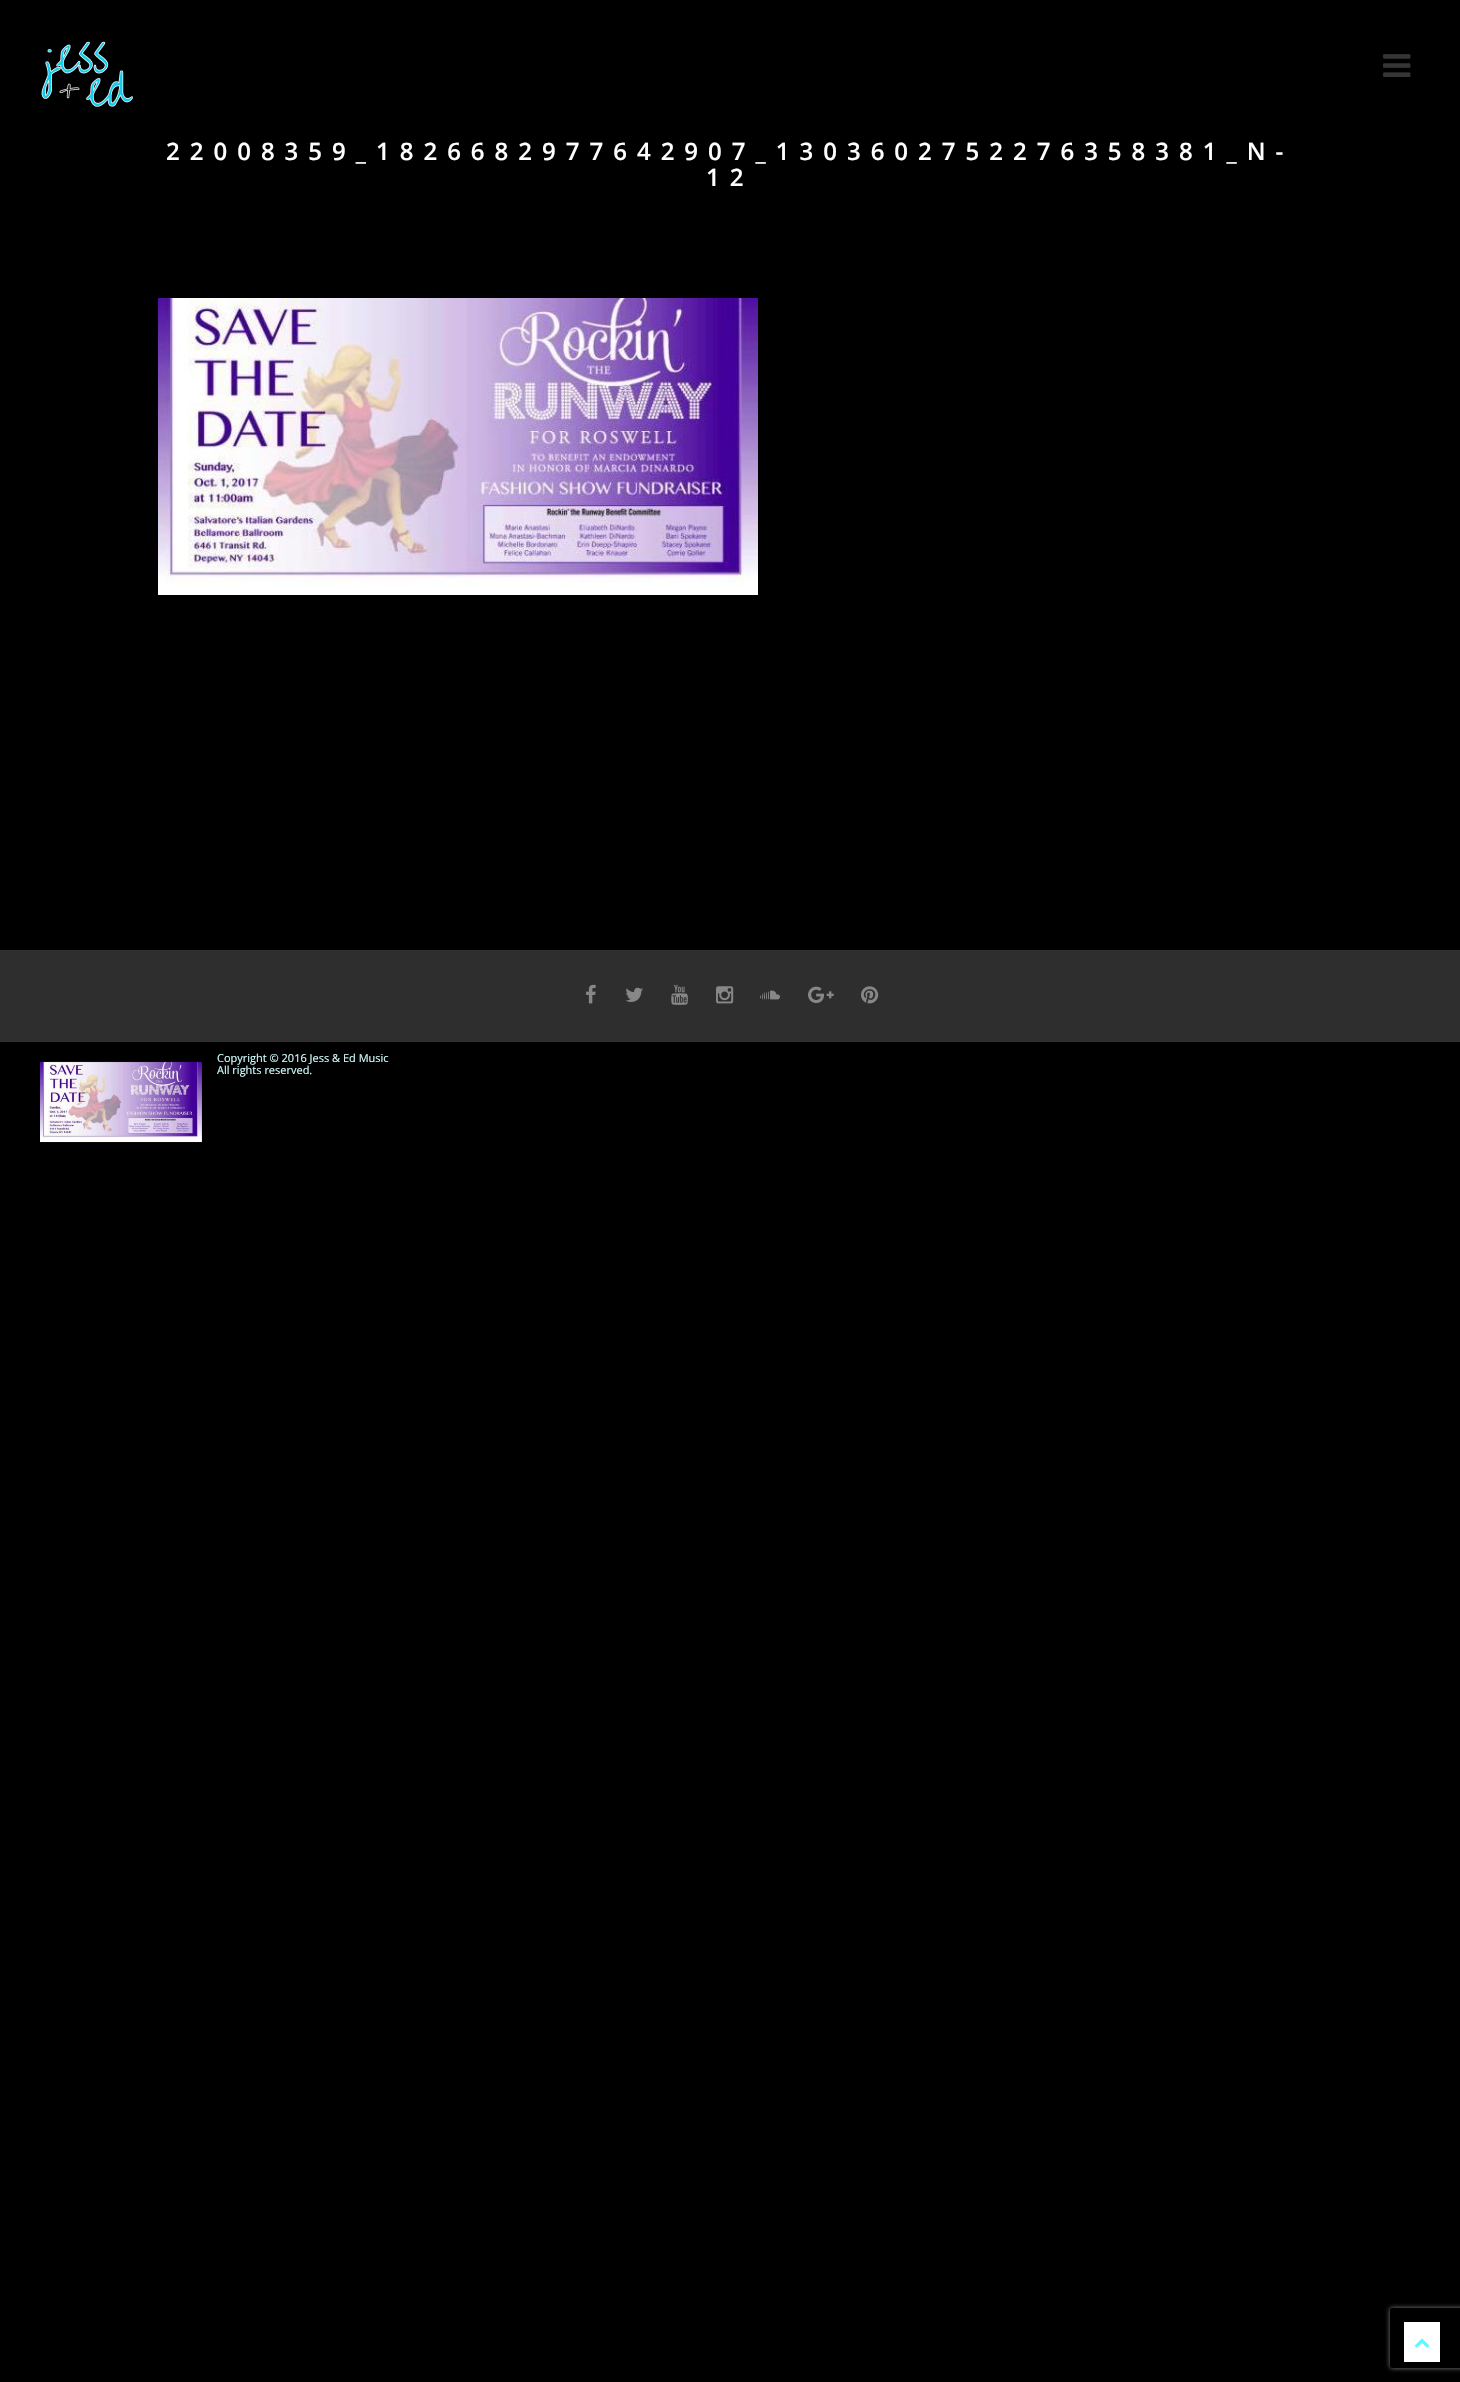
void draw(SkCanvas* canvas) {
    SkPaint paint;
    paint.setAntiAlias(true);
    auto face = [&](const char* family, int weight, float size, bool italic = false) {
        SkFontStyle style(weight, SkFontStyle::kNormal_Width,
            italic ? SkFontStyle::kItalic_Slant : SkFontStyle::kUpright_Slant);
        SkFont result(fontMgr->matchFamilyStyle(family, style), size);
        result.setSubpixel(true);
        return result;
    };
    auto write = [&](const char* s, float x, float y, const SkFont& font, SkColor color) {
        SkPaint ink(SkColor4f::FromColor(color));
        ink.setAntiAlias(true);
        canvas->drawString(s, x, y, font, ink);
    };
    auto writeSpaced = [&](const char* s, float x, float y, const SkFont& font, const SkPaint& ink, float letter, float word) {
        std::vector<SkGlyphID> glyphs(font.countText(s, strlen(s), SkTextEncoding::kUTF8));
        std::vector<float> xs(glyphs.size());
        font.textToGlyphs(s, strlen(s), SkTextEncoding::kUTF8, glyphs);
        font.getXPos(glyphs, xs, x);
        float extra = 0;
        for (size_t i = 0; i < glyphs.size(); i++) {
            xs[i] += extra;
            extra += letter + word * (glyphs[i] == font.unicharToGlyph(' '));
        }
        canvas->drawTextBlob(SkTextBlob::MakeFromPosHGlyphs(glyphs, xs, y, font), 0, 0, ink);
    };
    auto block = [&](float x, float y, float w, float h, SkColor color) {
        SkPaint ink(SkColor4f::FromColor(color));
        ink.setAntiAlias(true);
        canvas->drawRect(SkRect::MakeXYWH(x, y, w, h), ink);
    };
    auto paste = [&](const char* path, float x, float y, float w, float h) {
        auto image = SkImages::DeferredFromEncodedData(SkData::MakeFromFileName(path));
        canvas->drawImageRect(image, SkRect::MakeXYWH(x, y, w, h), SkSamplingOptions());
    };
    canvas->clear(SK_ColorBLACK);
    paste("pic1.png", 41, 41, 92, 66);
    paste("pic2.png", 1383, 54, 28, 23);
    auto kFont1 = face("Open Sans", 600, 24);
    paint.setColor(SK_ColorWHITE);
    writeSpaced("22008359_1826682977642907_1303602752276358381_N-", 166, 160, kFont1, paint, 10, 0);
    writeSpaced("12", 706, 186, kFont1, paint, 10, 0);
    paste("pic3.png", 158, 298, 600, 297);
    block(0, 950, 1460, 92, SkColorSetRGB(46, 46, 46));
    paste("pic4.png", 586, 984, 10, 20);
    paste("pic5.png", 625, 987, 18, 15);
    paste("pic6.png", 671, 984, 17, 21);
    paste("pic7.png", 716, 986, 18, 18);
    paste("pic8.png", 760, 990, 20, 10);
    paste("pic9.png", 808, 986, 26, 17);
    paste("pic10.png", 861, 986, 18, 18);
    paste("pic11.png", 40, 1061, 162, 82);
    auto kFont2 = face("Open Sans", 400, 11);
    write("Copyright © 2016 Jess & Ed Music", 217, 1062, kFont2, SkColorSetRGB(208, 254, 255));
    write("All rights reserved.", 217, 1074, kFont2, SkColorSetRGB(208, 254, 255));
    block(1404, 2322, 36, 40, SK_ColorWHITE);
    paste("pic12.png", 1414, 2338, 16, 10);
    canvas->save();
    canvas->clipPath(SkPathBuilder(SkPathFillType::kEvenOdd).moveTo(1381, 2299).lineTo(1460, 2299).lineTo(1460, 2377).lineTo(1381, 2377).close().moveTo(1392, 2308).lineTo(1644, 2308).cubicTo(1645, 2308, 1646, 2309, 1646, 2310).lineTo(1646, 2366).cubicTo(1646, 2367, 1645, 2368, 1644, 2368).lineTo(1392, 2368).cubicTo(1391, 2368, 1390, 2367, 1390, 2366).lineTo(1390, 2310).cubicTo(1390, 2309, 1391, 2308, 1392, 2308).close().detach(), true);
    paint.setColor(SkColorSetRGB(128, 128, 128));
    paint.setMaskFilter(SkMaskFilter::MakeBlur(kNormal_SkBlurStyle, 2.5f));
    canvas->drawRoundRect(SkRect::MakeXYWH(1390, 2308, 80, 60), 2, 2, paint);
    paint.setMaskFilter(nullptr);
    canvas->restore();
}
